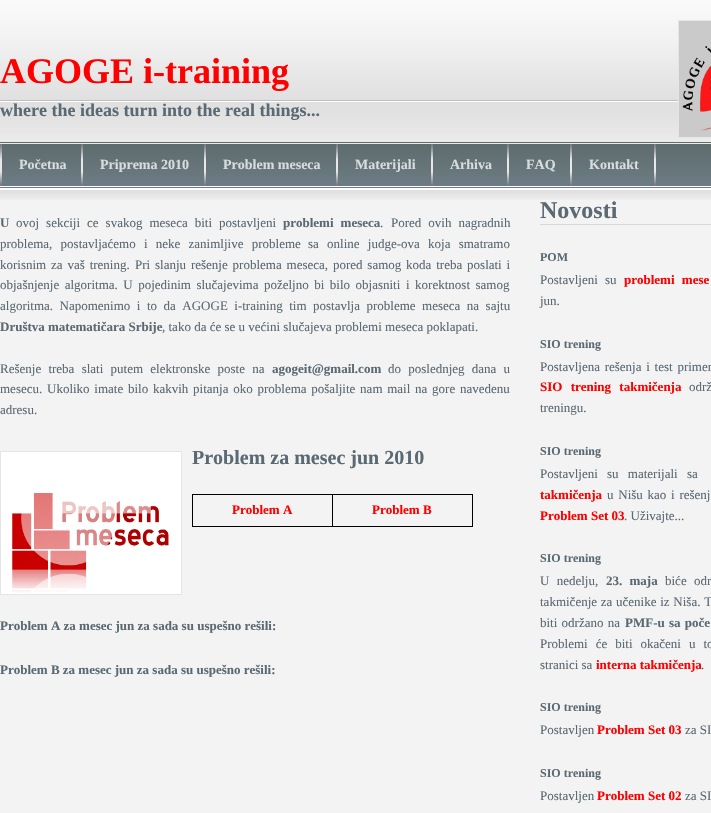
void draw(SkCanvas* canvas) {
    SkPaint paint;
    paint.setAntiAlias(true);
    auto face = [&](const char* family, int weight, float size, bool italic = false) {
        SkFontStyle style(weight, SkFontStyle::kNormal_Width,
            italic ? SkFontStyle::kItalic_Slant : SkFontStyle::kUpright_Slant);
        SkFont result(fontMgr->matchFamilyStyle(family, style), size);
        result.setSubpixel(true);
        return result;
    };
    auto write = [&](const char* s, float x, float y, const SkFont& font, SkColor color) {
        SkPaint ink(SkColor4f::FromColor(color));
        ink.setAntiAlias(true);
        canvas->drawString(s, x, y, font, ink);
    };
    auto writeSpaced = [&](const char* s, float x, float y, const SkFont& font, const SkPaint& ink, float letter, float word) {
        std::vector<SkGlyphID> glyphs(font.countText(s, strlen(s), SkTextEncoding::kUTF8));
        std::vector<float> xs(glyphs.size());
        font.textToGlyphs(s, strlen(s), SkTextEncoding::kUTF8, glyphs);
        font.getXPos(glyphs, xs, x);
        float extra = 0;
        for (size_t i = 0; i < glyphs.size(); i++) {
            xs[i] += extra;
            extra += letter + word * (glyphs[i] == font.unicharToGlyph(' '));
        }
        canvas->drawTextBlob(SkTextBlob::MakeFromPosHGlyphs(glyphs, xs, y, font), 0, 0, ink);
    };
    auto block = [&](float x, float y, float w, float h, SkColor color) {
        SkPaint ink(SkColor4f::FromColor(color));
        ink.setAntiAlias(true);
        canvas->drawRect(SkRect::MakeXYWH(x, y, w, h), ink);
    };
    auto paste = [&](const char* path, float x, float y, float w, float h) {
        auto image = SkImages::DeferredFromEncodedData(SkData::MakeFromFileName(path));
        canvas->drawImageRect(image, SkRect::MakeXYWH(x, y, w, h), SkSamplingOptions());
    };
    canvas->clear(SkColorSetRGB(243, 243, 243));
    paste("pic1.png", 0, 0, 711, 200);
    auto kFont1 = face("Liberation Serif", 700, 36);
    write("AGOGE i-training", 0, 83, kFont1, SkColorSetRGB(255, 0, 0));
    paint.setStyle(SkPaint::kStroke_Style);
    paint.setStrokeWidth(1);
    paint.setColor(SkColorSetRGB(229, 229, 229));
    canvas->drawRect(SkRect::MakeXYWH(678.5f, 20.5f, 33, 117), paint);
    paste("pic2.png", 679, 21, 32, 116);
    auto kFont2 = face("Liberation Serif", 700, 18);
    write("where the ideas turn into the real things...", 0, 116, kFont2, SkColorSetRGB(91, 105, 115));
    paste("pic3.png", 0, 144, 2, 42);
    block(2, 182, 652, 4, SkColorSetRGB(106, 122, 134));
    paste("pic4.png", 2, 144, 652, 38);
    paste("pic3.png", 81, 144, 2, 42);
    auto kFont3 = face("Liberation Serif", 700, 14);
    write("Početna", 19, 169, kFont3, SkColorSetRGB(216, 220, 224));
    paste("pic3.png", 204, 144, 2, 42);
    write("Priprema 2010", 100, 169, kFont3, SkColorSetRGB(216, 220, 224));
    paste("pic3.png", 336, 144, 2, 42);
    write("Problem meseca", 223, 169, kFont3, SkColorSetRGB(216, 220, 224));
    paste("pic3.png", 431, 144, 2, 42);
    write("Materijali", 355, 169, kFont3, SkColorSetRGB(216, 220, 224));
    paste("pic3.png", 507, 144, 2, 42);
    write("Arhiva", 450, 169, kFont3, SkColorSetRGB(216, 220, 224));
    paste("pic3.png", 570, 144, 2, 42);
    write("FAQ", 526, 169, kFont3, SkColorSetRGB(216, 220, 224));
    paste("pic3.png", 654, 144, 2, 42);
    write("Kontakt", 589, 169, kFont3, SkColorSetRGB(216, 220, 224));
    auto kFont4 = face("Liberation Serif", 700, 13);
    write("U", 0, 227, kFont4, SkColorSetRGB(91, 105, 115));
    auto kFont5 = face("Liberation Serif", 400, 13);
    paint.setStyle(SkPaint::kFill_Style);
    paint.setColor(SkColorSetRGB(91, 105, 115));
    writeSpaced("ovoj sekciji ce svakog meseca biti postavljeni", 16, 227, kFont5, paint, 0, 3.75f);
    writeSpaced("problemi meseca", 283, 227, kFont4, paint, 0, 3.75f);
    write(".", 380, 227, kFont5, SkColorSetRGB(91, 105, 115));
    writeSpaced("Pored ovih nagradnih", 391, 227, kFont5, paint, 0, 3.75f);
    writeSpaced("problema, postavljaćemo i neke zanimljive probleme", 0, 248, kFont5, paint, 0, 5);
    writeSpaced("sa online judge-ova koja smatramo", 308, 248, kFont5, paint, 0, 5);
    writeSpaced("korisnim za vaš trening.", 0, 269, kFont5, paint, 0, 1.6f);
    writeSpaced("Pri slanju rešenje problema meseca, pored samog koda treba poslati i", 135, 269, kFont5, paint, 0, 1.6f);
    writeSpaced("objašnjenje algoritma. U pojedinim slučajevima poželjno bi bilo objasniti", 0, 289, kFont5, paint, 0, 2.25f);
    writeSpaced("i korektnost samog", 406, 289, kFont5, paint, 0, 2.25f);
    writeSpaced("algoritma. Napomenimo i to da AGOGE i-training tim postavlja probleme meseca na sajtu", 0, 310, kFont5, paint, 0, 3.25f);
    write("Društva matematičara Srbije", 0, 331, kFont4, SkColorSetRGB(91, 105, 115));
    write(", tako da će se u većini slučajeva problemi meseca poklapati.", 162, 331, kFont5, SkColorSetRGB(91, 105, 115));
    writeSpaced("Rešenje treba slati putem elektronske poste na", 0, 373, kFont5, paint, 0, 4);
    write("agogeit@gmail.com", 272, 373, kFont4, SkColorSetRGB(91, 105, 115));
    writeSpaced("do poslednjeg dana u", 388, 373, kFont5, paint, 0, 4);
    write("mesecu.", 0, 393, kFont5, SkColorSetRGB(91, 105, 115));
    writeSpaced("Ukoliko imate bilo kakvih pitanja oko problema pošaljite nam mail na gore navedenu", 47, 393, kFont5, paint, 0, 1.5f);
    write("adresu.", 0, 414, kFont5, SkColorSetRGB(91, 105, 115));
    paint.setStyle(SkPaint::kStroke_Style);
    paint.setColor(SkColorSetRGB(229, 229, 229));
    canvas->drawRect(SkRect::MakeXYWH(0.5f, 451.5f, 181, 143), paint);
    paste("pic5.png", 1, 452, 180, 142);
    auto kFont6 = face("Liberation Serif", 700, 20);
    write("Problem za mesec jun 2010", 192, 464, kFont6, SkColorSetRGB(91, 105, 115));
    block(332, 494, 141, 1, SK_ColorBLACK);
    block(472, 494, 1, 33, SK_ColorBLACK);
    block(332, 526, 141, 1, SK_ColorBLACK);
    block(332, 494, 1, 33, SK_ColorBLACK);
    block(192, 494, 141, 1, SK_ColorBLACK);
    block(192, 526, 141, 1, SK_ColorBLACK);
    block(192, 494, 1, 33, SK_ColorBLACK);
    write("Problem A", 232, 514, kFont4, SkColorSetRGB(255, 0, 0));
    write("Problem B", 372, 514, kFont4, SkColorSetRGB(255, 0, 0));
    write("Problem A za mesec jun za sada su uspešno rešili:", 0, 630, kFont4, SkColorSetRGB(91, 105, 115));
    write("Problem B za mesec jun za sada su uspešno rešili:", 0, 674, kFont4, SkColorSetRGB(91, 105, 115));
    block(540, 224, 171, 1, SkColorSetRGB(216, 216, 216));
    auto kFont7 = face("Liberation Serif", 700, 24);
    write("Novosti", 540, 218, kFont7, SkColorSetRGB(91, 105, 115));
    auto kFont8 = face("Liberation Serif", 700, 12);
    write("POM", 540, 261, kFont8, SkColorSetRGB(91, 105, 115));
    paint.setStyle(SkPaint::kFill_Style);
    paint.setColor(SkColorSetRGB(91, 105, 115));
    writeSpaced("Postavljeni su", 540, 284, kFont5, paint, 0, 4);
    paint.setColor(SkColorSetRGB(255, 0, 0));
    writeSpaced("problemi mese", 624, 284, kFont4, paint, 0, 4);
    write("jun.", 540, 305, kFont5, SkColorSetRGB(91, 105, 115));
    write("SIO trening", 540, 348, kFont8, SkColorSetRGB(91, 105, 115));
    paint.setColor(SkColorSetRGB(91, 105, 115));
    writeSpaced("Postavljena rešenja i test primer", 540, 371, kFont5, paint, 0, 1.5f);
    paint.setColor(SkColorSetRGB(255, 0, 0));
    writeSpaced("SIO trening takmičenja", 540, 391, kFont4, paint, 0, 5);
    paint.setColor(SkColorSetRGB(91, 105, 115));
    writeSpaced("održ", 689, 391, kFont5, paint, 0, 5);
    write("treningu.", 540, 412, kFont5, SkColorSetRGB(91, 105, 115));
    write("SIO trening", 540, 455, kFont8, SkColorSetRGB(91, 105, 115));
    writeSpaced("Postavljeni su materijali sa", 540, 478, kFont5, paint, 0, 6);
    write("takmičenja", 540, 499, kFont4, SkColorSetRGB(255, 0, 0));
    writeSpaced("u Nišu kao i rešenj", 607, 499, kFont5, paint, 0, 1.5f);
    write("Problem Set 03", 540, 520, kFont4, SkColorSetRGB(255, 0, 0));
    write(". Uživajte...", 624, 520, kFont5, SkColorSetRGB(91, 105, 115));
    write("SIO trening", 540, 562, kFont8, SkColorSetRGB(91, 105, 115));
    writeSpaced("U nedelju,", 540, 585, kFont5, paint, 0, 4);
    writeSpaced("23. maja", 606, 585, kFont4, paint, 0, 4);
    writeSpaced("biće odr", 665, 585, kFont5, paint, 0, 4);
    writeSpaced("takmičenje za učenike iz Niša. T", 540, 606, kFont5, paint, 0, 0.5f);
    writeSpaced("biti održano na", 540, 627, kFont5, paint, 0, 1);
    writeSpaced("PMF-u sa poče", 625, 627, kFont4, paint, 0, 1);
    writeSpaced("Problemi će biti okačeni u to", 540, 648, kFont5, paint, 0, 4.75f);
    write("stranici sa", 540, 669, kFont5, SkColorSetRGB(91, 105, 115));
    write("interna takmičenja", 596, 669, kFont4, SkColorSetRGB(255, 0, 0));
    write(".", 701, 669, kFont5, SkColorSetRGB(91, 105, 115));
    write("SIO trening", 540, 711, kFont8, SkColorSetRGB(91, 105, 115));
    write("Postavljen", 540, 734, kFont5, SkColorSetRGB(91, 105, 115));
    write("Problem Set 03", 597, 734, kFont4, SkColorSetRGB(255, 0, 0));
    write("za SI", 685, 734, kFont5, SkColorSetRGB(91, 105, 115));
    write("SIO trening", 540, 777, kFont8, SkColorSetRGB(91, 105, 115));
    write("Postavljen", 540, 800, kFont5, SkColorSetRGB(91, 105, 115));
    write("Problem Set 02", 597, 800, kFont4, SkColorSetRGB(255, 0, 0));
    write("za SI", 685, 800, kFont5, SkColorSetRGB(91, 105, 115));
}
